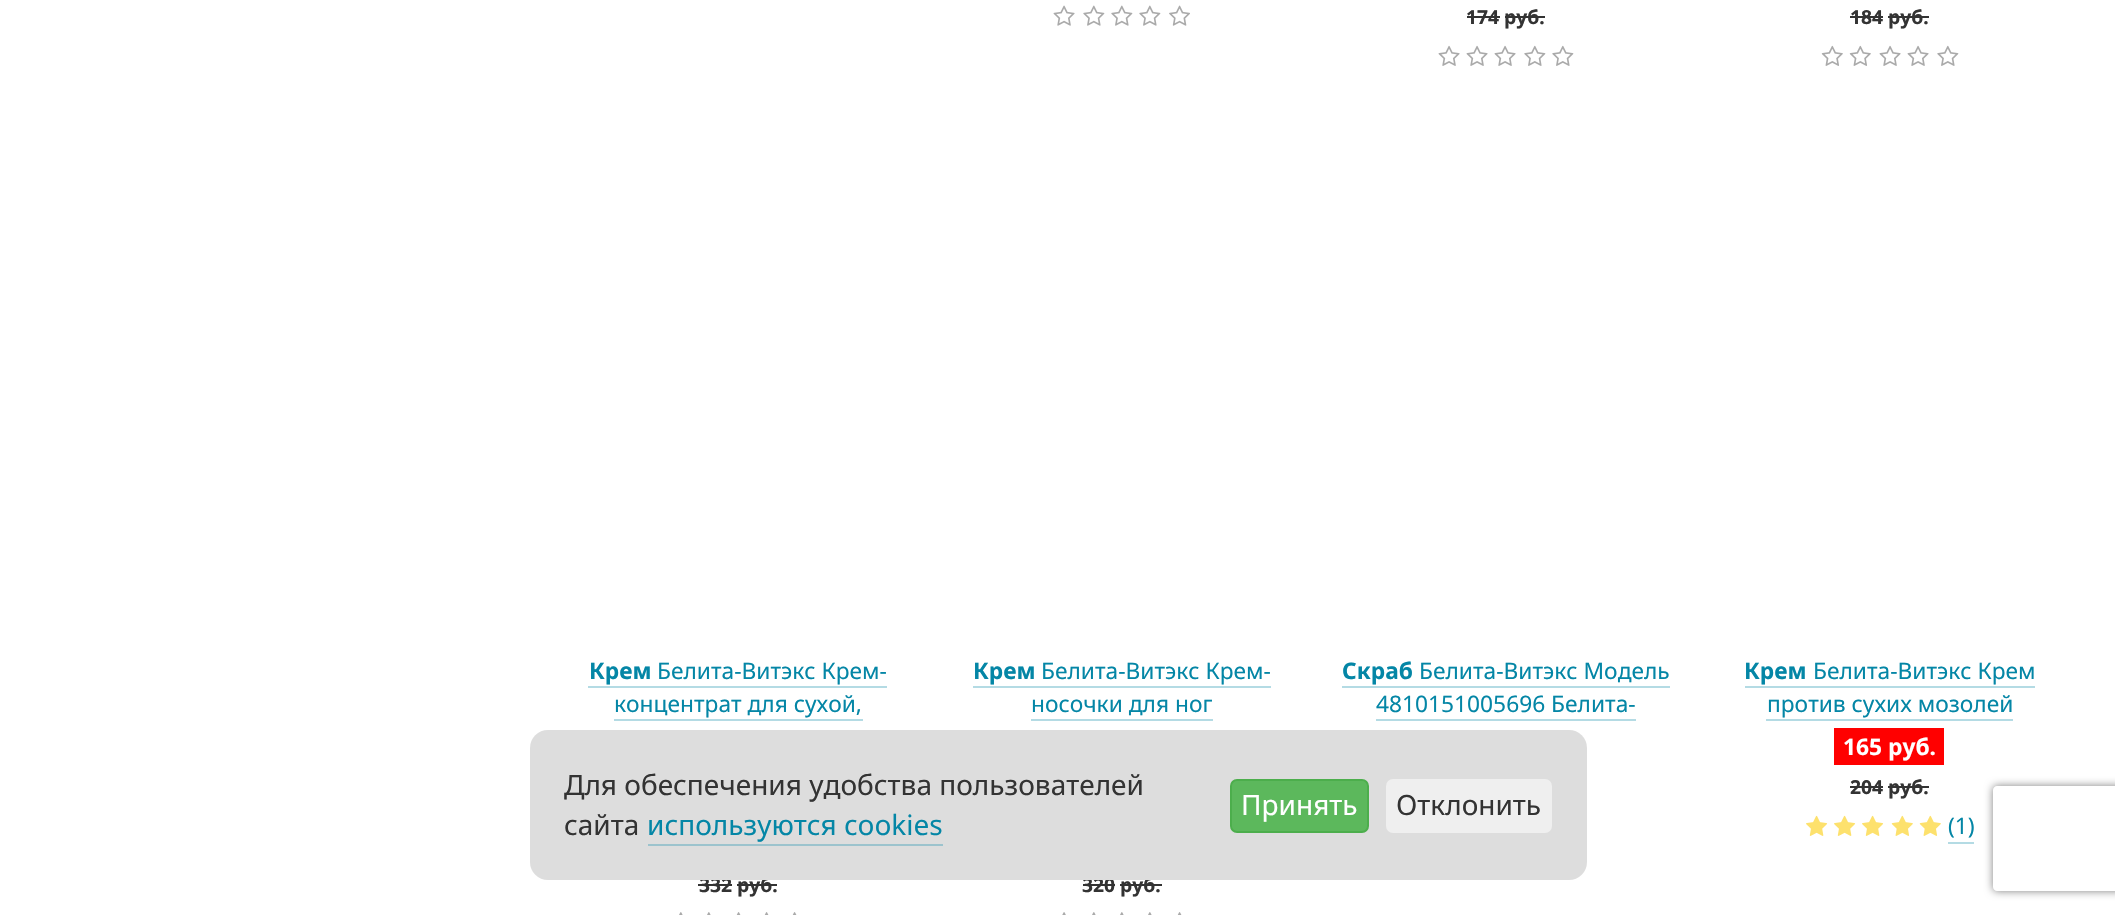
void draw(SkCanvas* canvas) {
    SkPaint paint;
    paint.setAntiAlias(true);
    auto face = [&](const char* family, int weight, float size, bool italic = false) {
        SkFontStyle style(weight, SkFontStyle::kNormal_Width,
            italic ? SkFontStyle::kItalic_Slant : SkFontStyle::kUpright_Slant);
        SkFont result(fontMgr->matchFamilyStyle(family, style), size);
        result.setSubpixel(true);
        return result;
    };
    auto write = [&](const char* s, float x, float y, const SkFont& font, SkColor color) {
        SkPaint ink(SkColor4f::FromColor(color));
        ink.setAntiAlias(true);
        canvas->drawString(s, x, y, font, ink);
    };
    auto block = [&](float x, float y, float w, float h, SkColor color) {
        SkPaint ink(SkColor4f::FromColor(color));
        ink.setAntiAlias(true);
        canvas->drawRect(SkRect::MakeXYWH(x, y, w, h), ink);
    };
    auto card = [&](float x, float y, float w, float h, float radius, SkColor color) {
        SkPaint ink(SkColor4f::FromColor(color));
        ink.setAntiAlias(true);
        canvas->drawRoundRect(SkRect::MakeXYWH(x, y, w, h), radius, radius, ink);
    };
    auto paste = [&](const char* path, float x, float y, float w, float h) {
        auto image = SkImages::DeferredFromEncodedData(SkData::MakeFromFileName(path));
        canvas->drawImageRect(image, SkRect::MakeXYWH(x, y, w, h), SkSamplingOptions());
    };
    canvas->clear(SK_ColorWHITE);
    paste("pic1.png", 1053, 5, 22, 21);
    paste("pic2.png", 1083, 5, 22, 21);
    paste("pic2.png", 1111, 5, 22, 21);
    paste("pic2.png", 1139, 5, 22, 21);
    paste("pic3.png", 1169, 5, 21, 21);
    auto kFont1 = face("Noto Sans", 700, 19.25f);
    write("174 руб.", 1466, 24, kFont1, SkColorSetRGB(51, 51, 51));
    block(1467, 16, 33, 2, SkColorSetRGB(51, 51, 51));
    block(1505, 16, 40, 2, SkColorSetRGB(51, 51, 51));
    paste("pic4.png", 1438, 45, 22, 21);
    paste("pic4.png", 1466, 45, 22, 21);
    paste("pic4.png", 1494, 45, 22, 21);
    paste("pic5.png", 1524, 45, 22, 21);
    paste("pic5.png", 1552, 45, 22, 21);
    write("184 руб.", 1850, 24, kFont1, SkColorSetRGB(51, 51, 51));
    block(1850, 16, 33, 2, SkColorSetRGB(51, 51, 51));
    block(1888, 16, 41, 2, SkColorSetRGB(51, 51, 51));
    paste("pic6.png", 1821, 45, 22, 21);
    paste("pic6.png", 1849, 45, 22, 21);
    paste("pic4.png", 1879, 45, 22, 21);
    paste("pic4.png", 1907, 45, 22, 21);
    paste("pic5.png", 1937, 45, 22, 21);
    auto kFont2 = face("Noto Sans", 700, 22.75f);
    write("Крем", 589, 679, kFont2, SkColorSetRGB(4, 134, 166));
    block(588, 686, 299, 2, SkColorSetRGB(180, 219, 228));
    auto kFont3 = face("Noto Sans", 400, 22.75f);
    write("Белита-Витэкс Крем-", 657, 679, kFont3, SkColorSetRGB(4, 134, 166));
    write("концентрат для сухой,", 614, 712, kFont3, SkColorSetRGB(4, 134, 166));
    block(614, 719, 249, 2, SkColorSetRGB(180, 219, 228));
    write("332 руб.", 699, 892, kFont1, SkColorSetRGB(51, 51, 51));
    block(698, 884, 34, 2, SkColorSetRGB(51, 51, 51));
    block(737, 884, 40, 2, SkColorSetRGB(51, 51, 51));
    paste("pic7.png", 679, 912, 4, 3);
    paste("pic7.png", 707, 912, 4, 3);
    paste("pic8.png", 736, 912, 5, 3);
    paste("pic8.png", 764, 912, 5, 3);
    paste("pic8.png", 792, 912, 5, 3);
    write("Крем", 973, 679, kFont2, SkColorSetRGB(4, 134, 166));
    block(973, 686, 298, 2, SkColorSetRGB(180, 219, 228));
    write("Белита-Витэкс Крем-", 1041, 679, kFont3, SkColorSetRGB(4, 134, 166));
    write("носочки для ног", 1031, 712, kFont3, SkColorSetRGB(4, 134, 166));
    block(1031, 719, 182, 2, SkColorSetRGB(180, 219, 228));
    write("320 руб.", 1082, 892, kFont1, SkColorSetRGB(51, 51, 51));
    block(1083, 884, 32, 2, SkColorSetRGB(51, 51, 51));
    block(1120, 884, 42, 2, SkColorSetRGB(51, 51, 51));
    paste("pic9.png", 1062, 912, 4, 3);
    paste("pic7.png", 1092, 912, 4, 3);
    paste("pic7.png", 1120, 912, 4, 3);
    paste("pic7.png", 1148, 912, 4, 3);
    paste("pic8.png", 1177, 912, 5, 3);
    write("Скраб", 1342, 679, kFont2, SkColorSetRGB(4, 134, 166));
    block(1342, 686, 328, 2, SkColorSetRGB(180, 219, 228));
    write("Белита-Витэкс Модель", 1419, 679, kFont3, SkColorSetRGB(4, 134, 166));
    write("4810151005696 Белита-", 1376, 712, kFont3, SkColorSetRGB(4, 134, 166));
    block(1376, 719, 260, 2, SkColorSetRGB(180, 219, 228));
    write("Крем", 1744, 679, kFont2, SkColorSetRGB(4, 134, 166));
    block(1745, 686, 290, 2, SkColorSetRGB(180, 219, 228));
    write("Белита-Витэкс Крем", 1813, 679, kFont3, SkColorSetRGB(4, 134, 166));
    write("против сухих мозолей", 1767, 712, kFont3, SkColorSetRGB(4, 134, 166));
    block(1766, 719, 247, 2, SkColorSetRGB(180, 219, 228));
    block(1834, 728, 110, 37, SkColorSetRGB(255, 0, 0));
    write("165 руб.", 1843, 755, kFont2, SK_ColorWHITE);
    write("204 руб.", 1850, 794, kFont1, SkColorSetRGB(51, 51, 51));
    block(1850, 786, 33, 2, SkColorSetRGB(51, 51, 51));
    block(1888, 786, 41, 2, SkColorSetRGB(51, 51, 51));
    paste("pic10.png", 1806, 815, 22, 21);
    paste("pic10.png", 1834, 815, 22, 21);
    paste("pic10.png", 1862, 815, 22, 21);
    paste("pic11.png", 1891, 815, 22, 21);
    paste("pic11.png", 1919, 815, 22, 21);
    write("(1)", 1948, 834, kFont3, SkColorSetRGB(4, 134, 166));
    block(1948, 842, 26, 2, SkColorSetRGB(180, 219, 228));
    canvas->save();
    canvas->clipPath(SkPathBuilder(SkPathFillType::kEvenOdd).moveTo(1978, 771).lineTo(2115, 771).lineTo(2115, 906).lineTo(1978, 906).close().moveTo(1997, 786).lineTo(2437, 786).cubicTo(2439, 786, 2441, 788, 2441, 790).lineTo(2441, 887).cubicTo(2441, 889, 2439, 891, 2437, 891).lineTo(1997, 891).cubicTo(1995, 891, 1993, 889, 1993, 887).lineTo(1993, 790).cubicTo(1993, 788, 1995, 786, 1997, 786).close().detach(), true);
    paint.setColor(SkColorSetRGB(128, 128, 128));
    paint.setMaskFilter(SkMaskFilter::MakeBlur(kNormal_SkBlurStyle, 4.5f));
    canvas->drawRoundRect(SkRect::MakeXYWH(1993, 786, 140, 105), 4, 4, paint);
    paint.setMaskFilter(nullptr);
    canvas->restore();
    card(530, 730, 1057, 150, 18, SkColorSetRGB(221, 221, 221));
    auto kFont4 = face("Noto Sans", 400, 28);
    write("Для обеспечения удобства пользователей", 564, 795, kFont4, SkColorSetRGB(51, 51, 51));
    write("сайта", 564, 835, kFont4, SkColorSetRGB(51, 51, 51));
    write("используются cookies", 647, 835, kFont4, SkColorSetRGB(4, 134, 166));
    block(648, 844, 295, 2, SkColorSetRGB(156, 195, 205));
    paint.setColor(SkColorSetRGB(92, 184, 92));
    canvas->drawRoundRect(SkRect::MakeXYWH(1231, 780, 137, 52), 6, 6, paint);
    paint.setStyle(SkPaint::kStroke_Style);
    paint.setStrokeWidth(2);
    paint.setColor(SkColorSetRGB(76, 174, 76));
    canvas->drawRoundRect(SkRect::MakeXYWH(1231, 780, 137, 52), 6, 6, paint);
    write("Принять", 1241, 815, kFont4, SK_ColorWHITE);
    card(1386, 779, 166, 54, 7, SkColorSetRGB(239, 239, 239));
    write("Отклонить", 1396, 815, kFont4, SkColorSetRGB(51, 51, 51));
}
